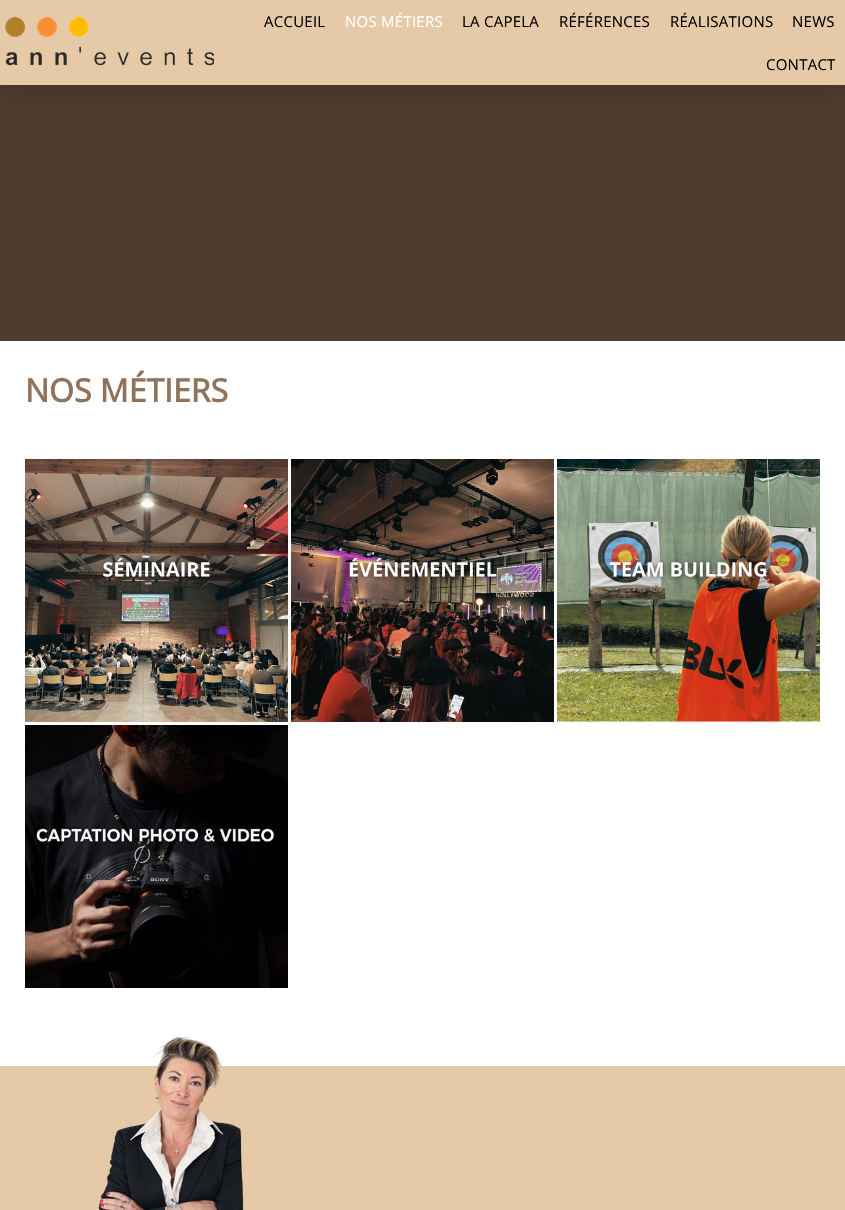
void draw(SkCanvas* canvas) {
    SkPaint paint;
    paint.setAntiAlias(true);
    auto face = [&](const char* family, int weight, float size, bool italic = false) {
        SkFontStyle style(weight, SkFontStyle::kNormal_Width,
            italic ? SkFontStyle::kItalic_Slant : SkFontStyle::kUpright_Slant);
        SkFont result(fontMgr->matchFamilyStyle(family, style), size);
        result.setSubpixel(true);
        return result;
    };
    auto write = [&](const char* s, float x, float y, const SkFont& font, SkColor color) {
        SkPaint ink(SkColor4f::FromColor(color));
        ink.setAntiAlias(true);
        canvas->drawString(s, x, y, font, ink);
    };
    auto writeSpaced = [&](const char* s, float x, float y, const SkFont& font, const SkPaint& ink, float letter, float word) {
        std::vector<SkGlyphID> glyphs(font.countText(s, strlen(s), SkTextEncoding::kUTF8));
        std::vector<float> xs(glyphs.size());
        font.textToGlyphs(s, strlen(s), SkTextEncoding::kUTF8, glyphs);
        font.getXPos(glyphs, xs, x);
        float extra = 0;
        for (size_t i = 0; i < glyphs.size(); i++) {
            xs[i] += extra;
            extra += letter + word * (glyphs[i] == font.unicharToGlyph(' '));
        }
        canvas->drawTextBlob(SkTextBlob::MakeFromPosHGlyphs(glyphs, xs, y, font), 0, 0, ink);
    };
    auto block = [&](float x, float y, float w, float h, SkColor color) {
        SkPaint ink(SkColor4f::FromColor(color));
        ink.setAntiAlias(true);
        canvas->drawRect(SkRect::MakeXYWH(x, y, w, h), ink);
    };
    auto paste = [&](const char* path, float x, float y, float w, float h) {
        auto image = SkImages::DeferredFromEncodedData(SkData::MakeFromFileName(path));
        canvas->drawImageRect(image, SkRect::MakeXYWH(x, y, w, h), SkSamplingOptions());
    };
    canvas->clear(SkColorSetRGB(78, 60, 44));
    paint.setColor(SkColorSetARGB(51, 0, 0, 0));
    paint.setMaskFilter(SkMaskFilter::MakeBlur(kNormal_SkBlurStyle, 15));
    canvas->drawRect(SkRect::MakeXYWH(0, 0, 845, 85), paint);
    paint.setMaskFilter(nullptr);
    block(0, 0, 845, 85, SkColorSetRGB(230, 201, 166));
    paste("pic1.png", 5, 17, 209, 49);
    auto kFont1 = face("Open Sans", 400, 15);
    paint.setColor(SK_ColorBLACK);
    writeSpaced("ACCUEIL", 264, 27, kFont1, paint, 0.25f, 0);
    paint.setColor(SK_ColorWHITE);
    writeSpaced("NOS MÉTIERS", 345, 27, kFont1, paint, 0.25f, 0);
    paint.setColor(SK_ColorBLACK);
    writeSpaced("LA CAPELA", 462, 27, kFont1, paint, 0.25f, 0);
    writeSpaced("RÉFÉRENCES", 559, 27, kFont1, paint, 0.25f, 0);
    writeSpaced("RÉALISATIONS", 670, 27, kFont1, paint, 0.25f, 0);
    writeSpaced("NEWS", 792, 27, kFont1, paint, 0.25f, 0);
    writeSpaced("CONTACT", 766, 70, kFont1, paint, 0.25f, 0);
    block(0, 341, 845, 725, SK_ColorWHITE);
    auto kFont2 = face("Open Sans", 700, 32);
    write("NOS MÉTIERS", 25, 402, kFont2, SkColorSetRGB(143, 116, 91));
    paste("pic2.png", 25, 459, 263, 263);
    paste("pic3.png", 291, 459, 263, 263);
    paste("pic4.png", 557, 459, 263, 263);
    paste("pic5.png", 25, 725, 263, 263);
    block(0, 1066, 845, 144, SkColorSetRGB(230, 201, 166));
    paste("pic6.png", 98, 1036, 146, 174);
}
